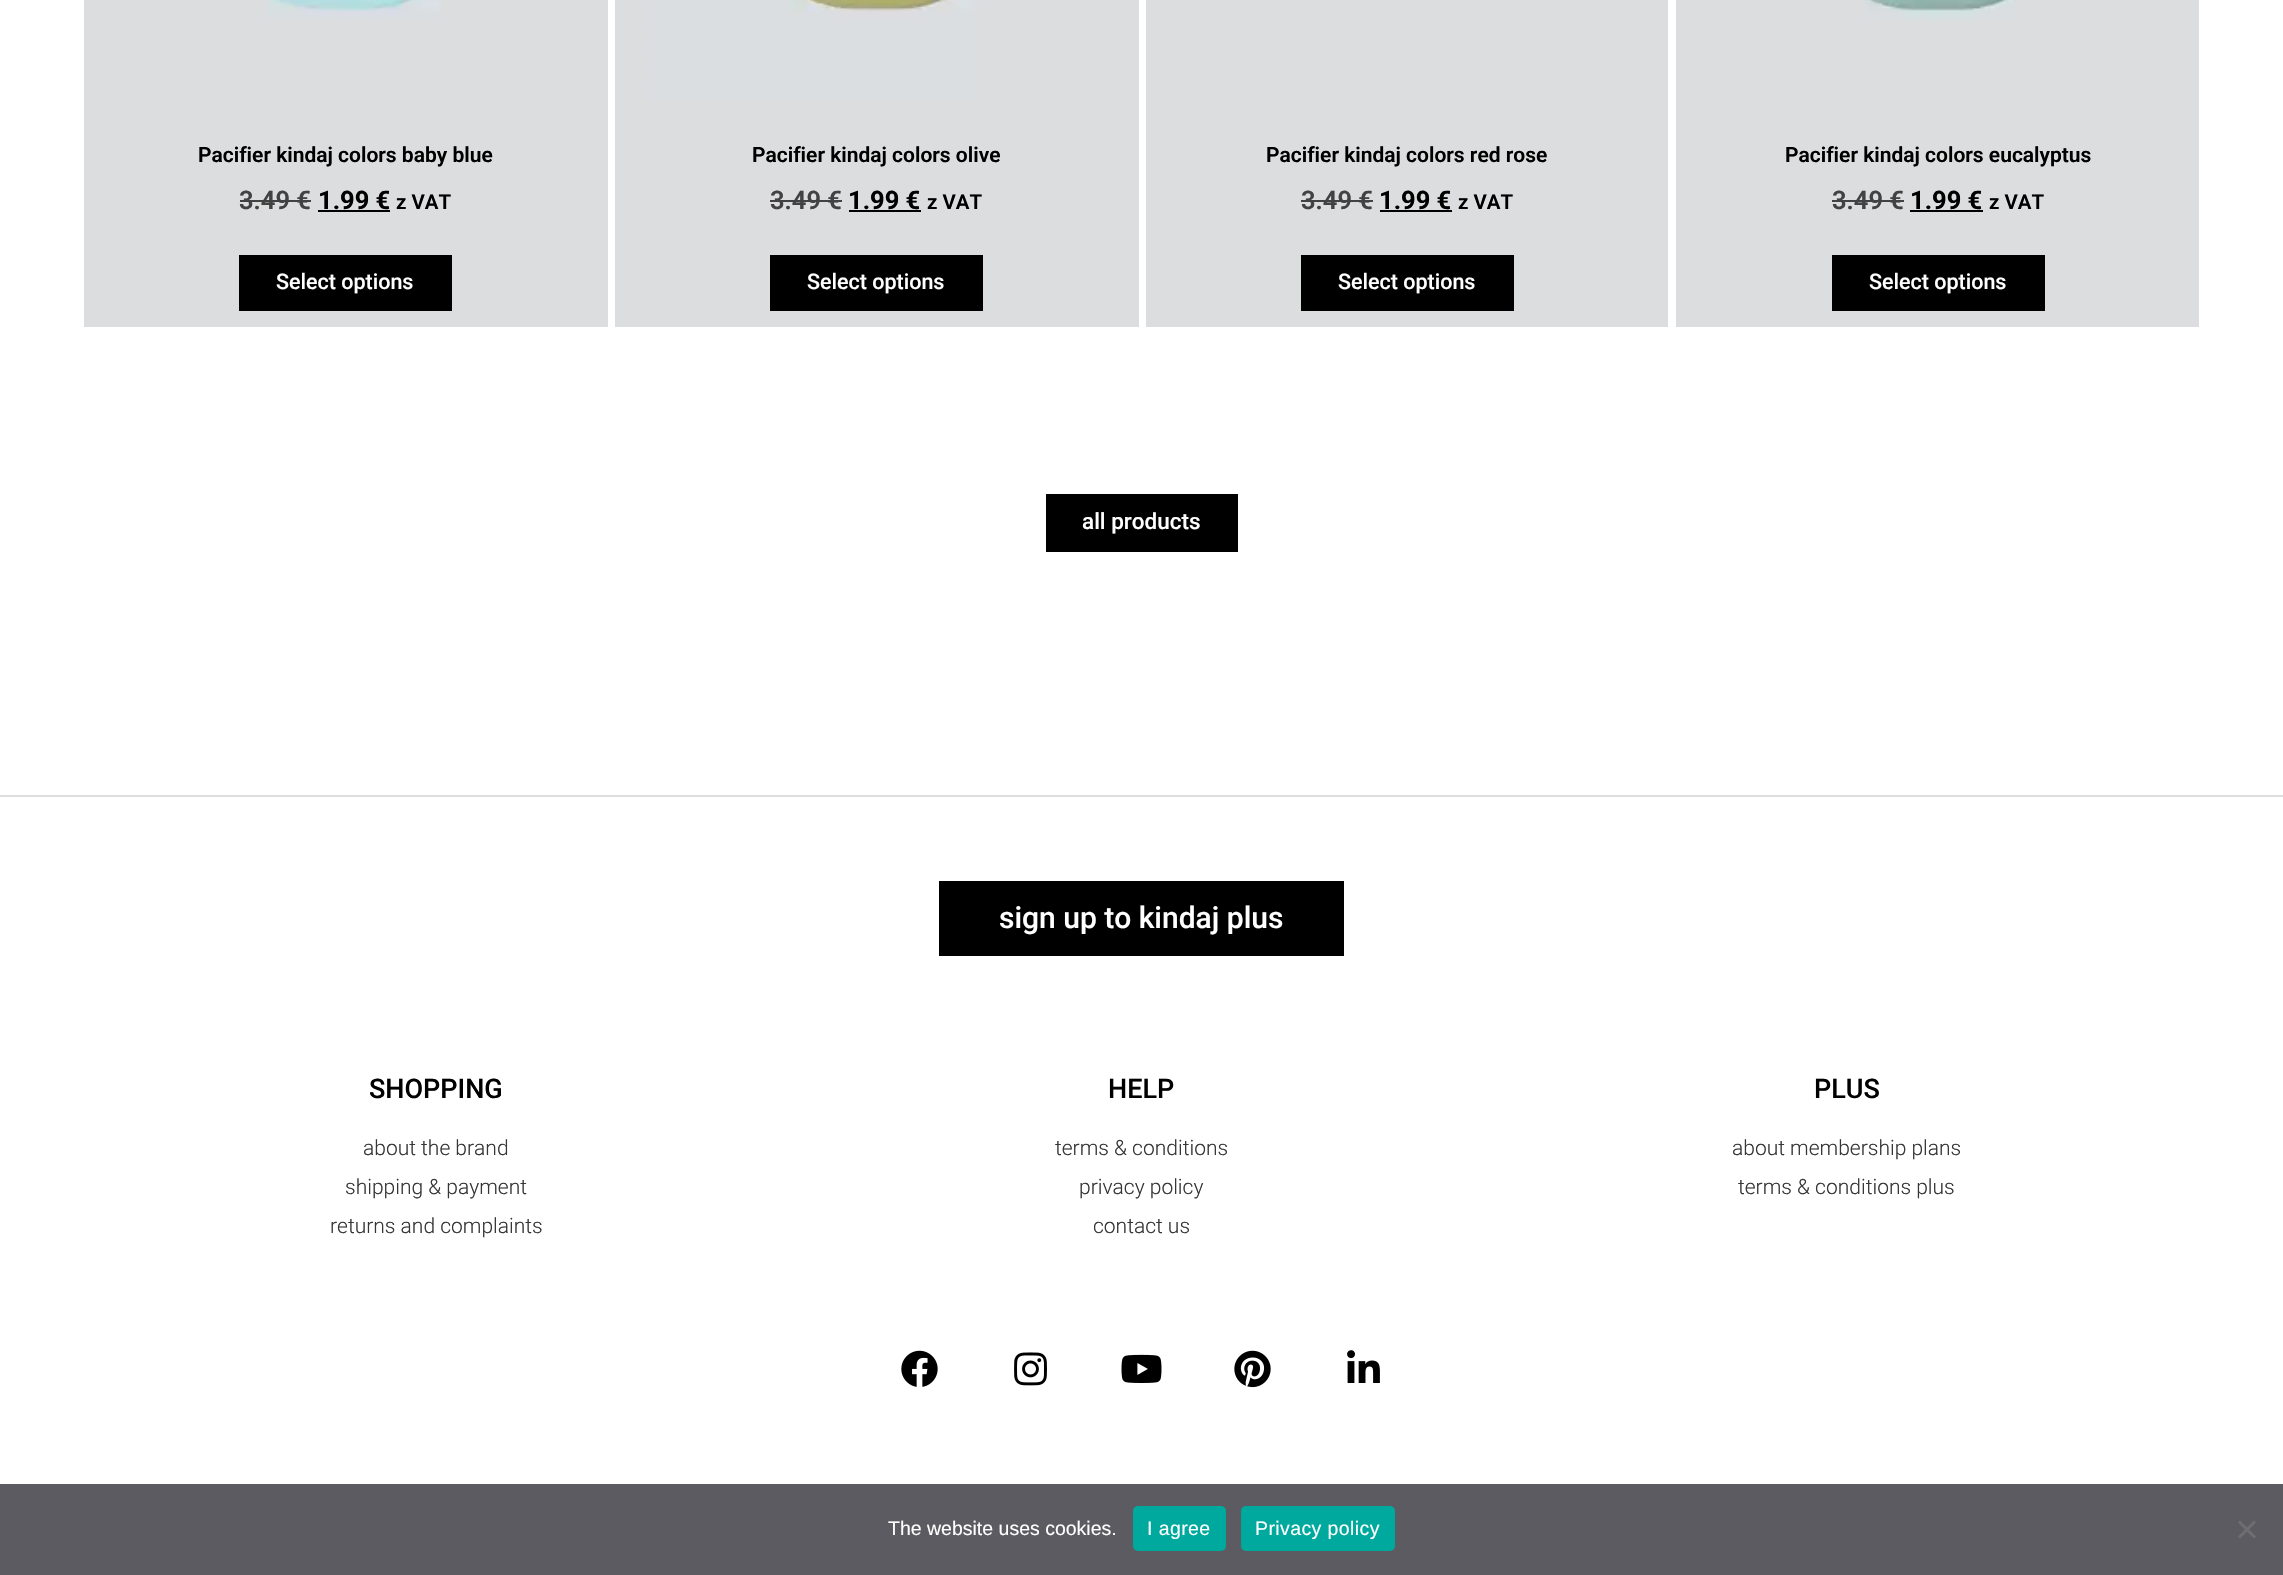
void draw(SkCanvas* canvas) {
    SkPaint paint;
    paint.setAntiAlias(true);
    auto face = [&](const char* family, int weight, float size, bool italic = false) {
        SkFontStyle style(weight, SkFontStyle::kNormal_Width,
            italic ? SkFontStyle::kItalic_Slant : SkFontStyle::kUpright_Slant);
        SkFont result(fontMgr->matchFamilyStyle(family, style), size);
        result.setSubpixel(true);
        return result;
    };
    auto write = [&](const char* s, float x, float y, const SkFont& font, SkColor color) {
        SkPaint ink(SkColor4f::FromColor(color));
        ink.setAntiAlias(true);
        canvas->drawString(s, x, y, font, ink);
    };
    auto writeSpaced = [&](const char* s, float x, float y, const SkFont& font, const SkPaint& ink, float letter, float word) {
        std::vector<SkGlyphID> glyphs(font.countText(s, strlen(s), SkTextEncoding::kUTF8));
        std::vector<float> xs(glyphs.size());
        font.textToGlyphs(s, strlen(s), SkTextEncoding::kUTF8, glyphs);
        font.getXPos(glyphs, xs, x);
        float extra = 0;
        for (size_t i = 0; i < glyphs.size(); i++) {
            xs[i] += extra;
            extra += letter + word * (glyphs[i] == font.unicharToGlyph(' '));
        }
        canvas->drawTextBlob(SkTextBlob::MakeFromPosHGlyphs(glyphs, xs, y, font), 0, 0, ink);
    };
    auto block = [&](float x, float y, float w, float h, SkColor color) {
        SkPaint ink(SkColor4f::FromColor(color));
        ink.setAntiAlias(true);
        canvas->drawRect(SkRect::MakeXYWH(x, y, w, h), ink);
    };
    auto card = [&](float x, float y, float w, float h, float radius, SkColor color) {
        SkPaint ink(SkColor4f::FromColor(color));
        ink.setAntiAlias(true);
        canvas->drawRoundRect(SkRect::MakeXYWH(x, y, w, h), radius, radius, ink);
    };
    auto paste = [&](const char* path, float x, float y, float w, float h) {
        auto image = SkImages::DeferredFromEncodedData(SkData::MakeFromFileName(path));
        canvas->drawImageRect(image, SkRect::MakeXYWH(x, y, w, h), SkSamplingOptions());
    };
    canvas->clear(SK_ColorWHITE);
    block(84, 0, 524, 327, SkColorSetRGB(220, 221, 222));
    paste("pic1.png", 266, 0, 175, 19);
    auto kFont1 = face("Roboto", 600, 21);
    write("Pacifier kindaj colors baby blue", 198, 162, kFont1, SK_ColorBLACK);
    auto kFont2 = face("Roboto", 600, 25.5f);
    write("3.49 €", 239, 209, kFont2, SkColorSetRGB(66, 66, 67));
    block(240, 200, 71, 2, SkColorSetRGB(66, 66, 67));
    auto kFont3 = face("Roboto", 700, 25.5f);
    write("1.99 €", 318, 209, kFont3, SK_ColorBLACK);
    block(318, 210, 72, 2, SK_ColorBLACK);
    auto kFont4 = face("Roboto", 600, 20.5f);
    write("z VAT", 396, 209, kFont4, SK_ColorBLACK);
    block(239, 255, 213, 56, SK_ColorBLACK);
    auto kFont5 = face("Roboto", 500, 21.5f);
    write("Select options", 276, 289, kFont5, SK_ColorWHITE);
    block(615, 0, 524, 327, SkColorSetRGB(220, 221, 222));
    paste("pic2.png", 645, 0, 332, 101);
    write("Pacifier kindaj colors olive", 752, 162, kFont1, SK_ColorBLACK);
    write("3.49 €", 770, 209, kFont2, SkColorSetRGB(66, 66, 67));
    block(770, 200, 72, 2, SkColorSetRGB(66, 66, 67));
    write("1.99 €", 848, 209, kFont3, SK_ColorBLACK);
    block(849, 210, 72, 2, SK_ColorBLACK);
    write("z VAT", 927, 209, kFont4, SK_ColorBLACK);
    block(770, 255, 213, 56, SK_ColorBLACK);
    write("Select options", 807, 289, kFont5, SK_ColorWHITE);
    block(1146, 0, 522, 327, SkColorSetRGB(220, 221, 222));
    write("Pacifier kindaj colors red rose", 1266, 162, kFont1, SK_ColorBLACK);
    write("3.49 €", 1301, 209, kFont2, SkColorSetRGB(66, 66, 67));
    block(1301, 200, 72, 2, SkColorSetRGB(66, 66, 67));
    write("1.99 €", 1379, 209, kFont3, SK_ColorBLACK);
    block(1380, 210, 72, 2, SK_ColorBLACK);
    write("z VAT", 1458, 209, kFont4, SK_ColorBLACK);
    block(1301, 255, 213, 56, SK_ColorBLACK);
    write("Select options", 1338, 289, kFont5, SK_ColorWHITE);
    block(1676, 0, 523, 327, SkColorSetRGB(220, 221, 222));
    paste("pic3.png", 1863, 0, 153, 21);
    write("Pacifier kindaj colors eucalyptus", 1785, 162, kFont1, SK_ColorBLACK);
    write("3.49 €", 1832, 209, kFont2, SkColorSetRGB(66, 66, 67));
    block(1832, 200, 72, 2, SkColorSetRGB(66, 66, 67));
    write("1.99 €", 1910, 209, kFont3, SK_ColorBLACK);
    block(1910, 210, 73, 2, SK_ColorBLACK);
    write("z VAT", 1989, 209, kFont4, SK_ColorBLACK);
    block(1832, 255, 213, 56, SK_ColorBLACK);
    write("Select options", 1869, 289, kFont5, SK_ColorWHITE);
    block(1046, 494, 192, 58, SK_ColorBLACK);
    auto kFont6 = face("Roboto", 500, 22.5f);
    write("all products", 1082, 529, kFont6, SK_ColorWHITE);
    block(0, 795, 2283, 2, SkColorSetRGB(220, 221, 222));
    block(939, 881, 405, 75, SK_ColorBLACK);
    auto kFont7 = face("Roboto", 500, 30);
    write("sign up to kindaj plus", 999, 928, kFont7, SK_ColorWHITE);
    auto kFont8 = face("Roboto", 500, 27);
    write("SHOPPING", 369, 1098, kFont8, SK_ColorBLACK);
    auto kFont9 = face("Roboto", 300, 21);
    write("about the brand", 363, 1155, kFont9, SkColorSetRGB(54, 54, 54));
    write("shipping & payment", 345, 1194, kFont9, SkColorSetRGB(54, 54, 54));
    write("returns and complaints", 330, 1233, kFont9, SkColorSetRGB(54, 54, 54));
    write("HELP", 1108, 1098, kFont8, SK_ColorBLACK);
    write("terms & conditions", 1055, 1155, kFont9, SkColorSetRGB(54, 54, 54));
    write("privacy policy", 1079, 1194, kFont9, SkColorSetRGB(54, 54, 54));
    write("contact us", 1093, 1233, kFont9, SkColorSetRGB(54, 54, 54));
    write("PLUS", 1814, 1098, kFont8, SK_ColorBLACK);
    write("about membership plans", 1732, 1155, kFont9, SkColorSetRGB(54, 54, 54));
    write("terms & conditions plus", 1738, 1194, kFont9, SkColorSetRGB(54, 54, 54));
    paste("pic4.png", 901, 1350, 37, 37);
    paste("pic5.png", 1014, 1352, 33, 34);
    paste("pic6.png", 1121, 1354, 41, 29);
    paste("pic7.png", 1234, 1350, 37, 38);
    paste("pic8.png", 1347, 1350, 33, 33);
    block(0, 1484, 2283, 91, SkColorSetARGB(204, 50, 50, 58));
    auto kFont10 = face("Liberation Sans", 400, 19.5f);
    write("The website uses cookies.", 888, 1535, kFont10, SK_ColorWHITE);
    card(1133, 1506, 93, 45, 5, SkColorSetRGB(0, 169, 157));
    paint.setColor(SK_ColorWHITE);
    writeSpaced("I agree", 1147, 1535, kFont10, paint, 0.4f, 0);
    card(1241, 1506, 154, 45, 5, SkColorSetRGB(0, 169, 157));
    writeSpaced("Privacy policy", 1255, 1535, kFont10, paint, 0.4f, 0);
    paint.setColor(SkColorSetRGB(110, 110, 113));
    canvas->drawPath(SkPathBuilder().moveTo(2254, 1520.5f).lineTo(2256, 1522.5f).lineTo(2240, 1538.5f).lineTo(2238, 1536.5f).close().detach(), paint);
    canvas->drawPath(SkPathBuilder().moveTo(2238, 1522.5f).lineTo(2240, 1520.5f).lineTo(2256, 1536.5f).lineTo(2254, 1538.5f).close().detach(), paint);
}
